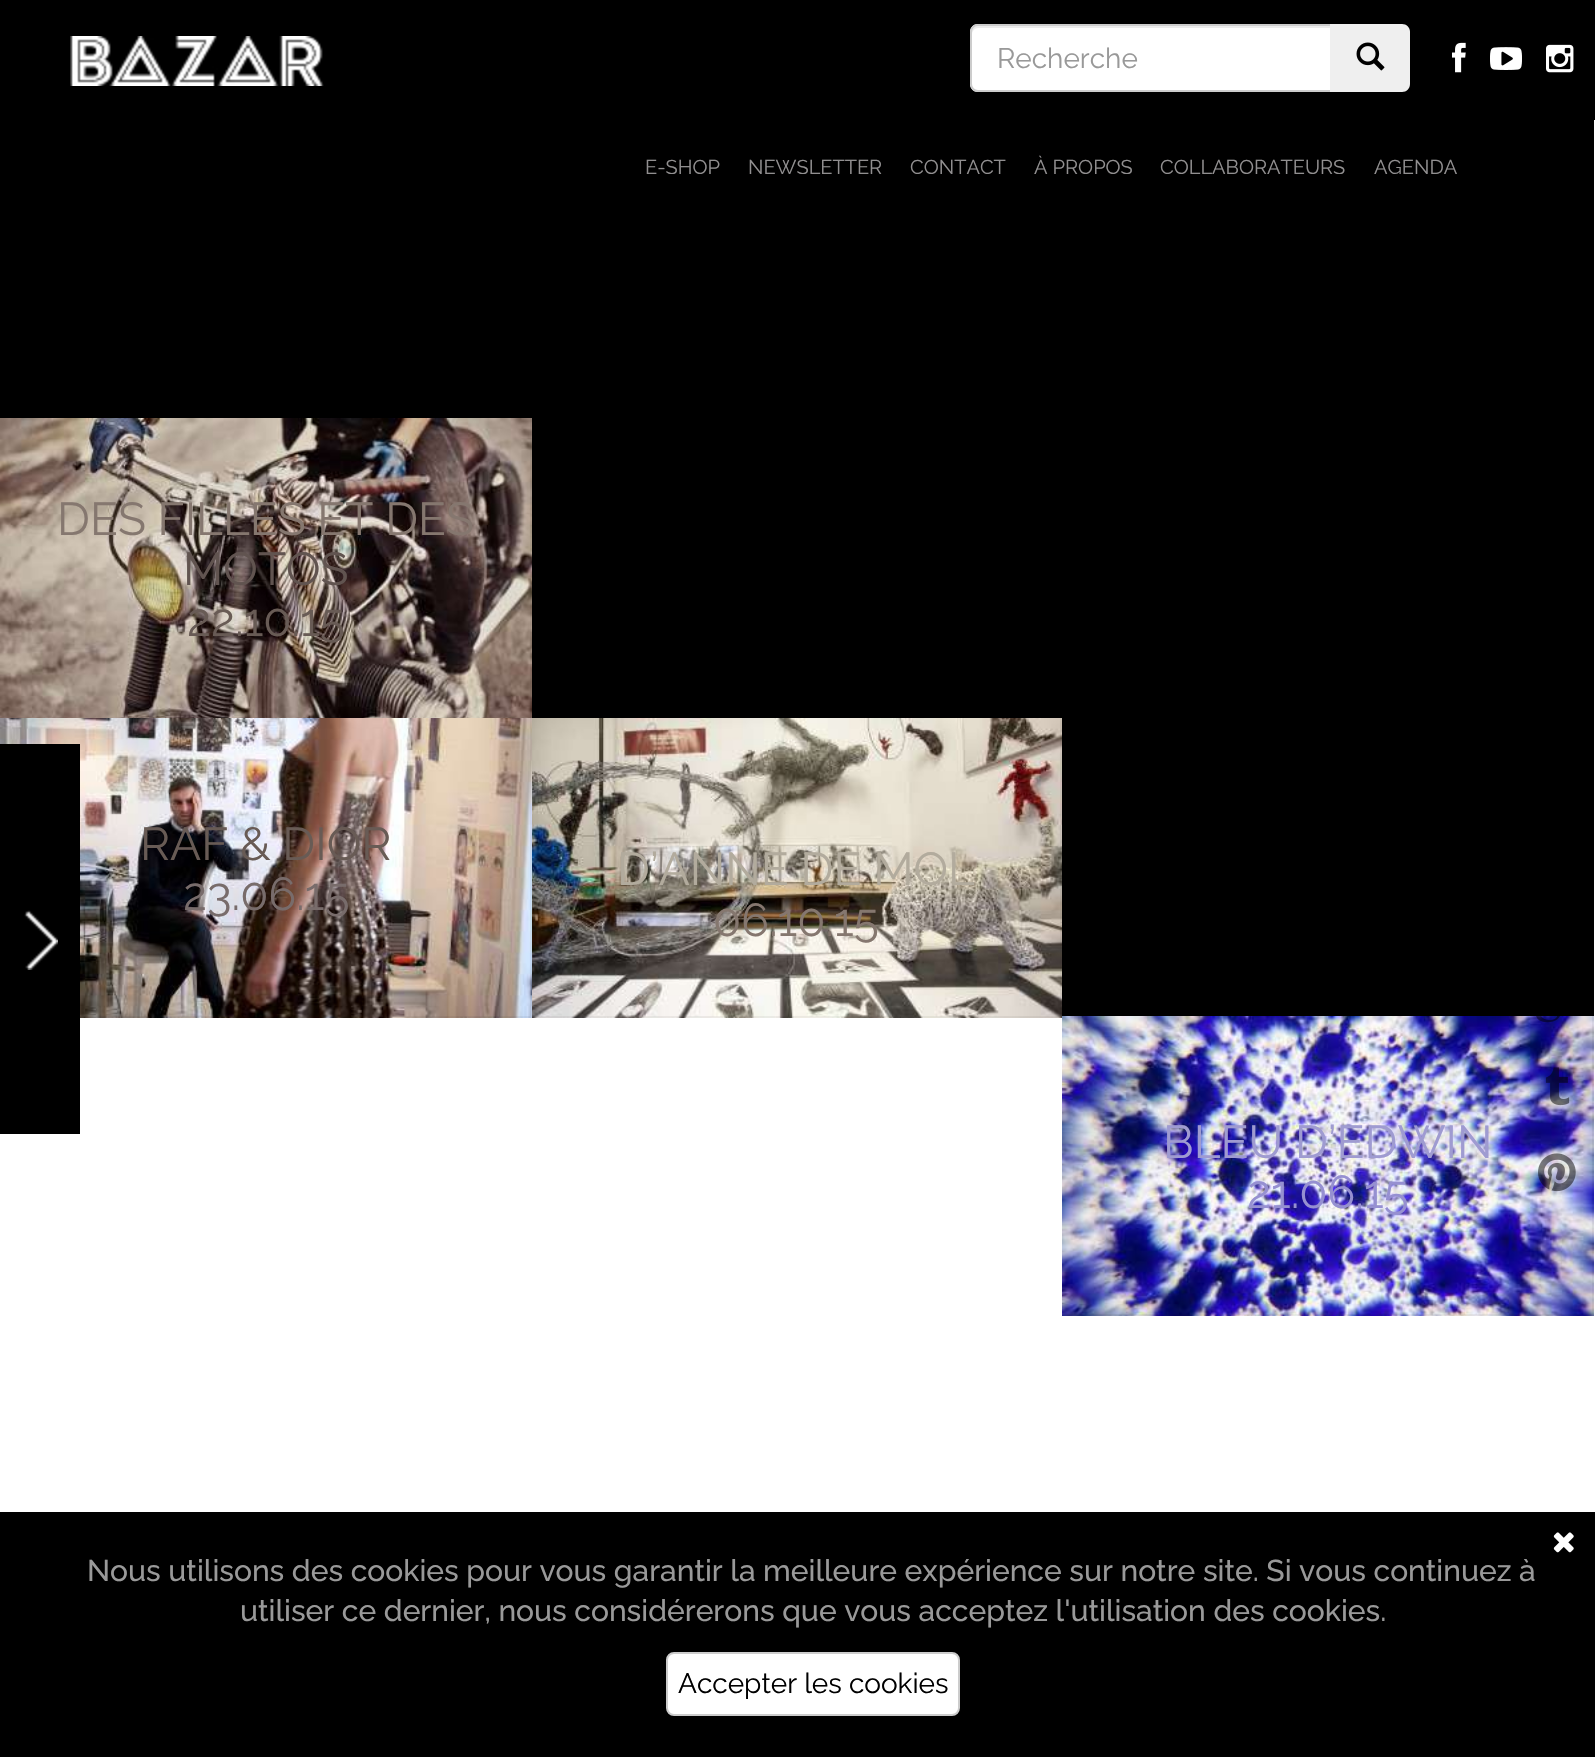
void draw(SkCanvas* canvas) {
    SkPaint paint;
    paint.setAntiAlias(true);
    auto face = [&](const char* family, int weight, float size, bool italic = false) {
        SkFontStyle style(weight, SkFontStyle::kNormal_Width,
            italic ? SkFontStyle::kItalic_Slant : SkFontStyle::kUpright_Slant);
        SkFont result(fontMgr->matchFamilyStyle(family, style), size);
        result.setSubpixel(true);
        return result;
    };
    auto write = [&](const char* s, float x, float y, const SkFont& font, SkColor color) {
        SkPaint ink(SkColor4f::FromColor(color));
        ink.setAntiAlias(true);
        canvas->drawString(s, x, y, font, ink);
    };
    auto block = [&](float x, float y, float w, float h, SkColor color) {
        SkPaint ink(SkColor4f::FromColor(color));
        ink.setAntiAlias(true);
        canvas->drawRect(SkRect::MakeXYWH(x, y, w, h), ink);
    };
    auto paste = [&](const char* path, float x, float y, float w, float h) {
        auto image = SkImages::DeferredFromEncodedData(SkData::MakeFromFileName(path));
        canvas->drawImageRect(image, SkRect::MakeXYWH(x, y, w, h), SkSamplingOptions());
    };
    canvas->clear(SK_ColorWHITE);
    block(0, 0, 1595, 120, SK_ColorBLACK);
    paste("pic1.png", 70, 36, 254, 50);
    paint.setColor(SK_ColorWHITE);
    canvas->drawPath(SkPathBuilder().moveTo(978, 24).lineTo(1332, 24).lineTo(1332, 92).lineTo(978, 92).cubicTo(973.5f, 92, 970, 88.5f, 970, 84).lineTo(970, 32).cubicTo(970, 27.5f, 973.5f, 24, 978, 24).close().detach(), paint);
    paint.setColor(SkColorSetRGB(236, 236, 236));
    canvas->drawPath(SkPathBuilder().moveTo(978, 28).lineTo(1330, 28).lineTo(1330, 26).lineTo(978, 26).cubicTo(975, 26, 972, 29, 972, 32).lineTo(972, 34).cubicTo(972, 31, 975, 28, 978, 28).close().detach(), paint);
    paint.setStyle(SkPaint::kStroke_Style);
    paint.setStrokeWidth(2);
    paint.setColor(SkColorSetRGB(204, 204, 204));
    canvas->drawPath(SkPathBuilder().moveTo(978, 25).lineTo(1331, 25).lineTo(1331, 91).lineTo(978, 91).cubicTo(974, 91, 971, 88, 971, 84).lineTo(971, 32).cubicTo(971, 28, 974, 25, 978, 25).close().detach(), paint);
    auto kFont1 = face("Raleway", 400, 28);
    write("Recherche", 997, 68, kFont1, SkColorSetRGB(153, 153, 153));
    paint.setStyle(SkPaint::kFill_Style);
    paint.setColor(SkColorSetRGB(239, 239, 239));
    canvas->drawPath(SkPathBuilder().moveTo(1330, 24).lineTo(1402, 24).cubicTo(1406.5f, 24, 1410, 27.5f, 1410, 32).lineTo(1410, 84).cubicTo(1410, 88.5f, 1406.5f, 92, 1402, 92).lineTo(1330, 92).close().detach(), paint);
    paste("pic2.png", 1356, 42, 29, 29);
    paste("pic3.png", 1452, 42, 14, 31);
    paste("pic4.png", 1490, 47, 32, 23);
    paste("pic5.png", 1546, 44, 28, 29);
    block(530, 120, 1064, 598, SK_ColorBLACK);
    auto kFont2 = face("Raleway", 400, 20);
    write("E-SHOP", 645, 174, kFont2, SkColorSetRGB(145, 143, 144));
    write("NEWSLETTER", 748, 174, kFont2, SkColorSetRGB(145, 143, 144));
    write("CONTACT", 910, 174, kFont2, SkColorSetRGB(145, 143, 144));
    write("À PROPOS", 1034, 174, kFont2, SkColorSetRGB(145, 143, 144));
    write("COLLABORATEURS", 1160, 174, kFont2, SkColorSetRGB(145, 143, 144));
    write("AGENDA", 1374, 174, kFont2, SkColorSetRGB(145, 143, 144));
    paste("pic7.png", 0, 418, 532, 300);
    paint.setColor(SkColorSetARGB(13, 0, 0, 0));
    canvas->drawPath(SkPathBuilder().moveTo(532, 418).lineTo(532, 720).lineTo(530, 718).lineTo(530, 418).close().detach(), paint);
    paste("pic9.png", 532, 718, 530, 300);
    canvas->drawPath(SkPathBuilder().moveTo(1062, 718).lineTo(1062, 1018).lineTo(1060, 1016).lineTo(1060, 718).close().detach(), paint);
    canvas->drawPath(SkPathBuilder().moveTo(1062, 1018).lineTo(530, 1018).lineTo(530, 1016).lineTo(1060, 1016).close().detach(), paint);
    paste("pic8.png", 0, 718, 532, 300);
    canvas->drawPath(SkPathBuilder().moveTo(532, 718).lineTo(532, 1018).lineTo(530, 1016).lineTo(530, 718).close().detach(), paint);
    canvas->drawPath(SkPathBuilder().moveTo(532, 1018).lineTo(0, 1018).lineTo(0, 1016).lineTo(530, 1016).close().detach(), paint);
    block(0, 744, 80, 390, SK_ColorBLACK);
    paste("pic6.png", 24, 910, 34, 60);
    block(0, 120, 530, 298, SK_ColorBLACK);
    auto kFont3 = face("Raleway", 400, 46);
    write("DES FILLES ET DES", 57, 535, kFont3, SkColorSetRGB(133, 119, 111));
    write("MOTOS", 183, 585, kFont3, SkColorSetRGB(97, 84, 80));
    write("22.10.15", 187, 636, kFont3, SkColorSetRGB(104, 91, 85));
    write("RAF & DIOR", 140, 860, kFont3, SkColorSetRGB(104, 91, 85));
    write("23.06.15", 183, 910, kFont3, SkColorSetRGB(120, 108, 107));
    write("D’ANNE DE MOL", 617, 885, kFont3, SkColorSetRGB(178, 171, 157));
    write("06.10.15", 713, 936, kFont3, SkColorSetRGB(133, 119, 111));
    block(1062, 718, 532, 298, SK_ColorBLACK);
    paste("pic10.png", 1062, 1016, 532, 300);
    canvas->drawPath(SkPathBuilder().moveTo(1594, 1016).lineTo(1594, 1316).lineTo(1592, 1314).lineTo(1592, 1016).close().detach(), paint);
    canvas->drawPath(SkPathBuilder().moveTo(1594, 1316).lineTo(1062, 1316).lineTo(1062, 1314).lineTo(1592, 1314).close().detach(), paint);
    write("BLEU D’EDWIN", 1163, 1158, kFont3, SkColorSetRGB(159, 155, 209));
    write("21.06.15", 1247, 1208, kFont3, SkColorSetRGB(150, 144, 209));
    paste("pic11.png", 1536, 1016, 24, 7);
    paste("pic12.png", 1545, 1067, 25, 39);
    paste("pic13.png", 1538, 1153, 38, 39);
    block(0, 1512, 1595, 245, SK_ColorBLACK);
    paste("pic14.png", 1553, 1532, 21, 21);
    auto kFont4 = face("Raleway", 500, 30);
    write("Nous utilisons des cookies pour vous garantir la meilleure expérience sur notre site. Si vous continuez à", 87, 1581, kFont4, SkColorSetRGB(153, 153, 153));
    write("utiliser ce dernier, nous considérerons que vous acceptez l'utilisation des cookies.", 240, 1621, kFont4, SkColorSetRGB(153, 153, 153));
    paint.setColor(SK_ColorWHITE);
    canvas->drawRoundRect(SkRect::MakeXYWH(667, 1653, 292, 62), 7, 7, paint);
    paint.setStyle(SkPaint::kStroke_Style);
    paint.setColor(SkColorSetRGB(204, 204, 204));
    canvas->drawRoundRect(SkRect::MakeXYWH(667, 1653, 292, 62), 7, 7, paint);
    write("Accepter les cookies", 678, 1693, kFont1, SK_ColorBLACK);
}
